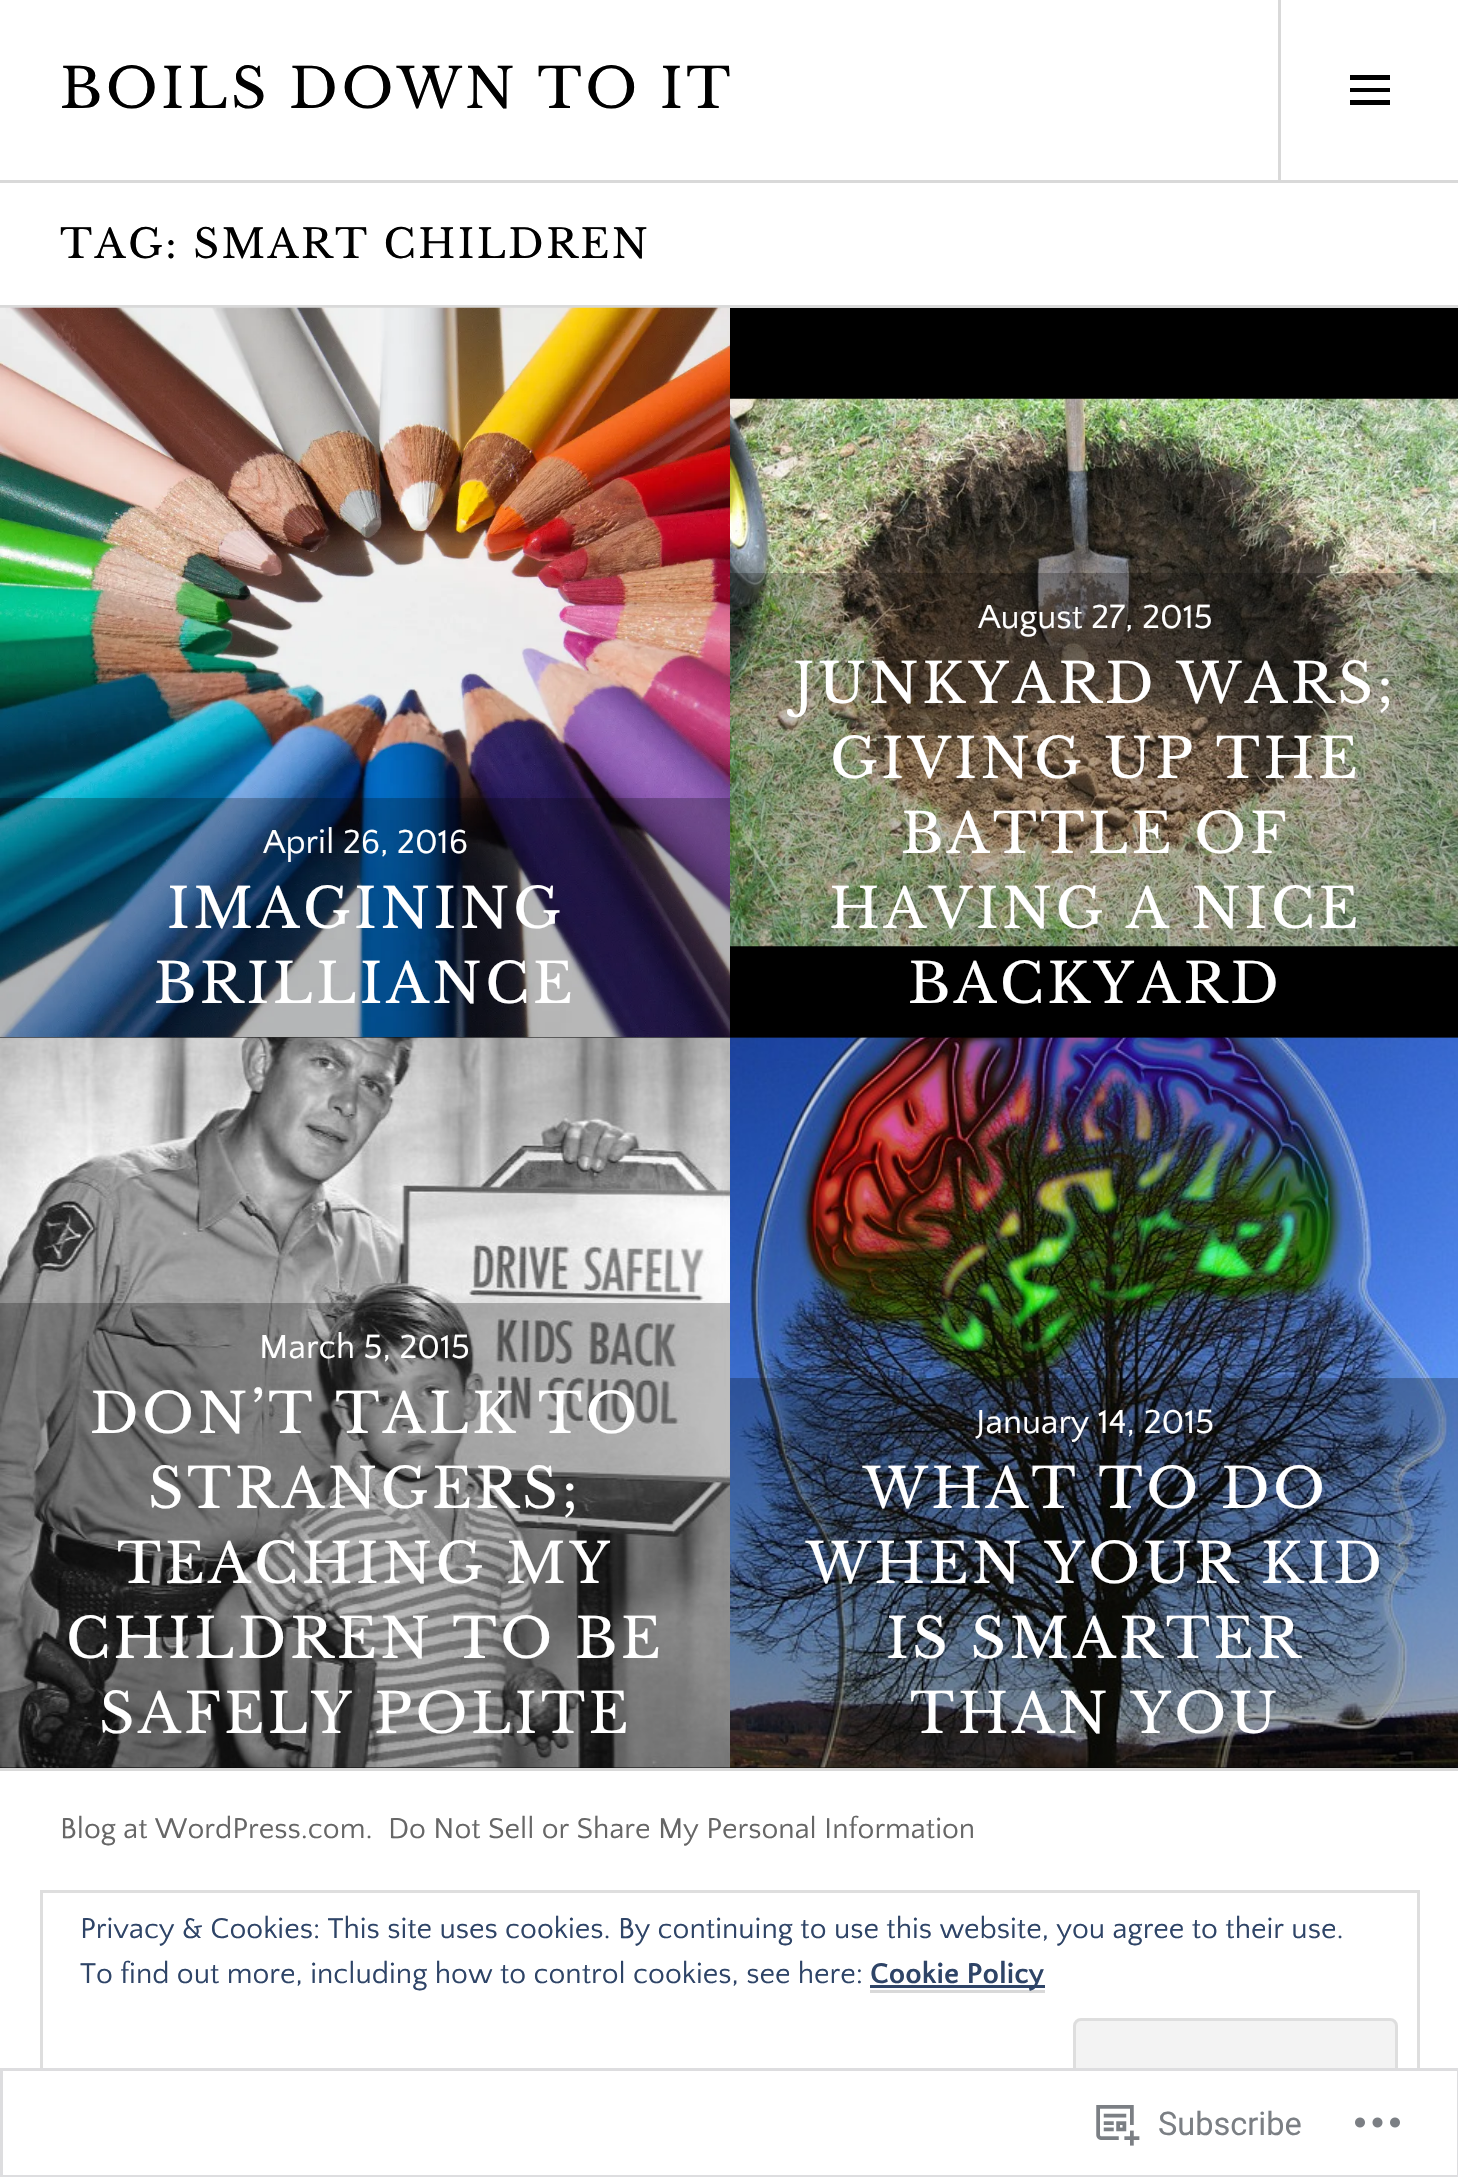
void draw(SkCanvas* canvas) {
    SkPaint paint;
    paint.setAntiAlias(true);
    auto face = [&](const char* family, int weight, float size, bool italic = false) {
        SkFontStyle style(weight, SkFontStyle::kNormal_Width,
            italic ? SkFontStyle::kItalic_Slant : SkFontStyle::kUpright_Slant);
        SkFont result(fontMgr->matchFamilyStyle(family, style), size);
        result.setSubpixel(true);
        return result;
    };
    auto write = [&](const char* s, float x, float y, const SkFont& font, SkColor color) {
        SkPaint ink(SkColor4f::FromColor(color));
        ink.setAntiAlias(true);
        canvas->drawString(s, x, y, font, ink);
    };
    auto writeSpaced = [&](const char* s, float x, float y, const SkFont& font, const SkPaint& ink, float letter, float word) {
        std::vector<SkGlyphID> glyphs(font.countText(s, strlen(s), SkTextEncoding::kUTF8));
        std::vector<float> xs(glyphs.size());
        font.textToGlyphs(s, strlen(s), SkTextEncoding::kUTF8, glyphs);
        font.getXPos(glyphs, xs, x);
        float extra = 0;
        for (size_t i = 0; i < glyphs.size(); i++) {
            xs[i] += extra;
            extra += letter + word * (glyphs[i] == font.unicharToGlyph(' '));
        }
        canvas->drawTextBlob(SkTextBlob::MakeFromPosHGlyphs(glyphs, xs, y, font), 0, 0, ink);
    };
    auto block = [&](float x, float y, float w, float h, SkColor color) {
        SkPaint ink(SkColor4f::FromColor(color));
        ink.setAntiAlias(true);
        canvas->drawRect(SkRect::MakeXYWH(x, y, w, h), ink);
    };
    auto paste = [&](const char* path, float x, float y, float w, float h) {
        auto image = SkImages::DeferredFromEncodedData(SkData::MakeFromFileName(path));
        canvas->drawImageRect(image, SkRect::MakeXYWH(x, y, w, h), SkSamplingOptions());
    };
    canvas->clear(SK_ColorWHITE);
    block(0, 180, 1458, 3, SkColorSetRGB(217, 217, 217));
    auto kFont1 = face("Libre Baskerville", 400, 55);
    paint.setColor(SK_ColorBLACK);
    writeSpaced("BOILS DOWN TO IT", 60, 108, kFont1, paint, 3.5f, 0);
    block(1278, 0, 3, 180, SkColorSetRGB(217, 217, 217));
    canvas->drawPath(SkPathBuilder().moveTo(1350, 105).lineTo(1350, 100).lineTo(1390, 100).lineTo(1390, 105).close().moveTo(1350, 75).lineTo(1390, 75).lineTo(1390, 80).lineTo(1350, 80).close().moveTo(1350, 92).lineTo(1350, 88).lineTo(1390, 88).lineTo(1390, 92).close().detach(), paint);
    block(0, 305, 1458, 3, SkColorSetRGB(217, 217, 217));
    auto kFont2 = face("Libre Baskerville", 400, 40);
    writeSpaced("TAG: SMART CHILDREN", 60, 258, kFont2, paint, 2.5f, 0);
    block(0, 1037, 730, 1, SK_ColorBLACK);
    paste("pic1.png", 0, 307, 730, 731);
    block(0, 1767, 1458, 1, SK_ColorBLACK);
    paste("pic3.png", 0, 1037, 730, 731);
    block(0, 798, 730, 240, SkColorSetARGB(64, 0, 0, 0));
    auto kFont3 = face("Quattrocento Sans", 400, 35);
    write("April 26, 2016", 263, 853, kFont3, SK_ColorWHITE);
    paint.setColor(SK_ColorWHITE);
    writeSpaced("IMAGINING", 167, 928, kFont1, paint, 3.5f, 0);
    writeSpaced("BRILLIANCE", 154, 1003, kFont1, paint, 3.5f, 0);
    block(730, 308, 728, 730, SK_ColorBLACK);
    paste("pic2.png", 730, 398, 728, 549);
    paste("pic4.png", 730, 1037, 728, 731);
    block(730, 573, 728, 465, SkColorSetARGB(64, 0, 0, 0));
    write("August 27, 2015", 978, 628, kFont3, SK_ColorWHITE);
    writeSpaced("JUNKYARD WARS;", 793, 703, kFont1, paint, 3.5f, 0);
    writeSpaced("GIVING UP THE", 830, 778, kFont1, paint, 3.5f, 0);
    writeSpaced("BATTLE OF", 901, 853, kFont1, paint, 3.5f, 0);
    writeSpaced("HAVING A NICE", 829, 928, kFont1, paint, 3.5f, 0);
    writeSpaced("BACKYARD", 908, 1003, kFont1, paint, 3.5f, 0);
    block(0, 1303, 730, 465, SkColorSetARGB(64, 0, 0, 0));
    write("March 5, 2015", 259, 1358, kFont3, SK_ColorWHITE);
    writeSpaced("DON’T TALK TO", 90, 1433, kFont1, paint, 3.5f, 0);
    writeSpaced("STRANGERS;", 148, 1508, kFont1, paint, 3.5f, 0);
    writeSpaced("TEACHING MY", 117, 1583, kFont1, paint, 3.5f, 0);
    writeSpaced("CHILDREN TO BE", 66, 1658, kFont1, paint, 3.5f, 0);
    writeSpaced("SAFELY POLITE", 99, 1733, kFont1, paint, 3.5f, 0);
    block(730, 1378, 728, 390, SkColorSetARGB(64, 0, 0, 0));
    write("January 14, 2015", 976, 1433, kFont3, SK_ColorWHITE);
    writeSpaced("WHAT TO DO", 863, 1508, kFont1, paint, 3.5f, 0);
    writeSpaced("WHEN YOUR KID", 806, 1583, kFont1, paint, 3.5f, 0);
    writeSpaced("IS SMARTER", 886, 1658, kFont1, paint, 3.5f, 0);
    writeSpaced("THAN YOU", 910, 1733, kFont1, paint, 3.5f, 0);
    block(0, 1768, 1458, 3, SkColorSetRGB(217, 217, 217));
    auto kFont4 = face("Quattrocento Sans", 400, 30);
    write("Blog at WordPress.com.", 60, 1838, kFont4, SkColorSetRGB(102, 102, 102));
    write("Do Not Sell or Share My Personal Information", 388, 1838, kFont4, SkColorSetRGB(102, 102, 102));
    paint.setStyle(SkPaint::kStroke_Style);
    paint.setStrokeWidth(3);
    paint.setColor(SkColorSetRGB(222, 222, 222));
    canvas->drawRect(SkRect::MakeXYWH(41.5f, 1891.5f, 1377, 245), paint);
    write("Privacy & Cookies: This site uses cookies. By continuing to use this website, you agree to their use.", 80, 1938, kFont4, SkColorSetRGB(46, 68, 103));
    write("To find out more, including how to control cookies, see here:", 80, 1983, kFont4, SkColorSetRGB(46, 68, 103));
    block(870, 1990, 175, 3, SkColorSetRGB(217, 217, 217));
    block(870, 1985, 175, 3, SkColorSetRGB(46, 68, 103));
    auto kFont5 = face("Quattrocento Sans", 700, 30);
    write("Cookie Policy", 870, 1983, kFont5, SkColorSetRGB(46, 68, 103));
    paint.setStyle(SkPaint::kFill_Style);
    paint.setColor(SkColorSetRGB(243, 243, 243));
    canvas->drawRoundRect(SkRect::MakeXYWH(1074.5f, 2019.5f, 322, 94), 6.5f, 6.5f, paint);
    paint.setStyle(SkPaint::kStroke_Style);
    paint.setColor(SkColorSetRGB(222, 222, 222));
    canvas->drawRoundRect(SkRect::MakeXYWH(1074.5f, 2019.5f, 322, 94), 6.5f, 6.5f, paint);
    block(40, 2068, 1380, 70, SkColorSetARGB(250, 255, 255, 255));
    paint.setColor(SkColorSetARGB(250, 220, 220, 222));
    canvas->drawRect(SkRect::MakeXYWH(1.5f, 2069.5f, 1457, 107), paint);
    paste("pic5.png", 1096, 2105, 44, 41);
    auto kFont6 = face("Roboto", 400, 32.5f);
    write("Subscribe", 1158, 2135, kFont6, SkColorSetRGB(123, 127, 132));
    paste("pic6.png", 1355, 2117, 45, 11);
}
